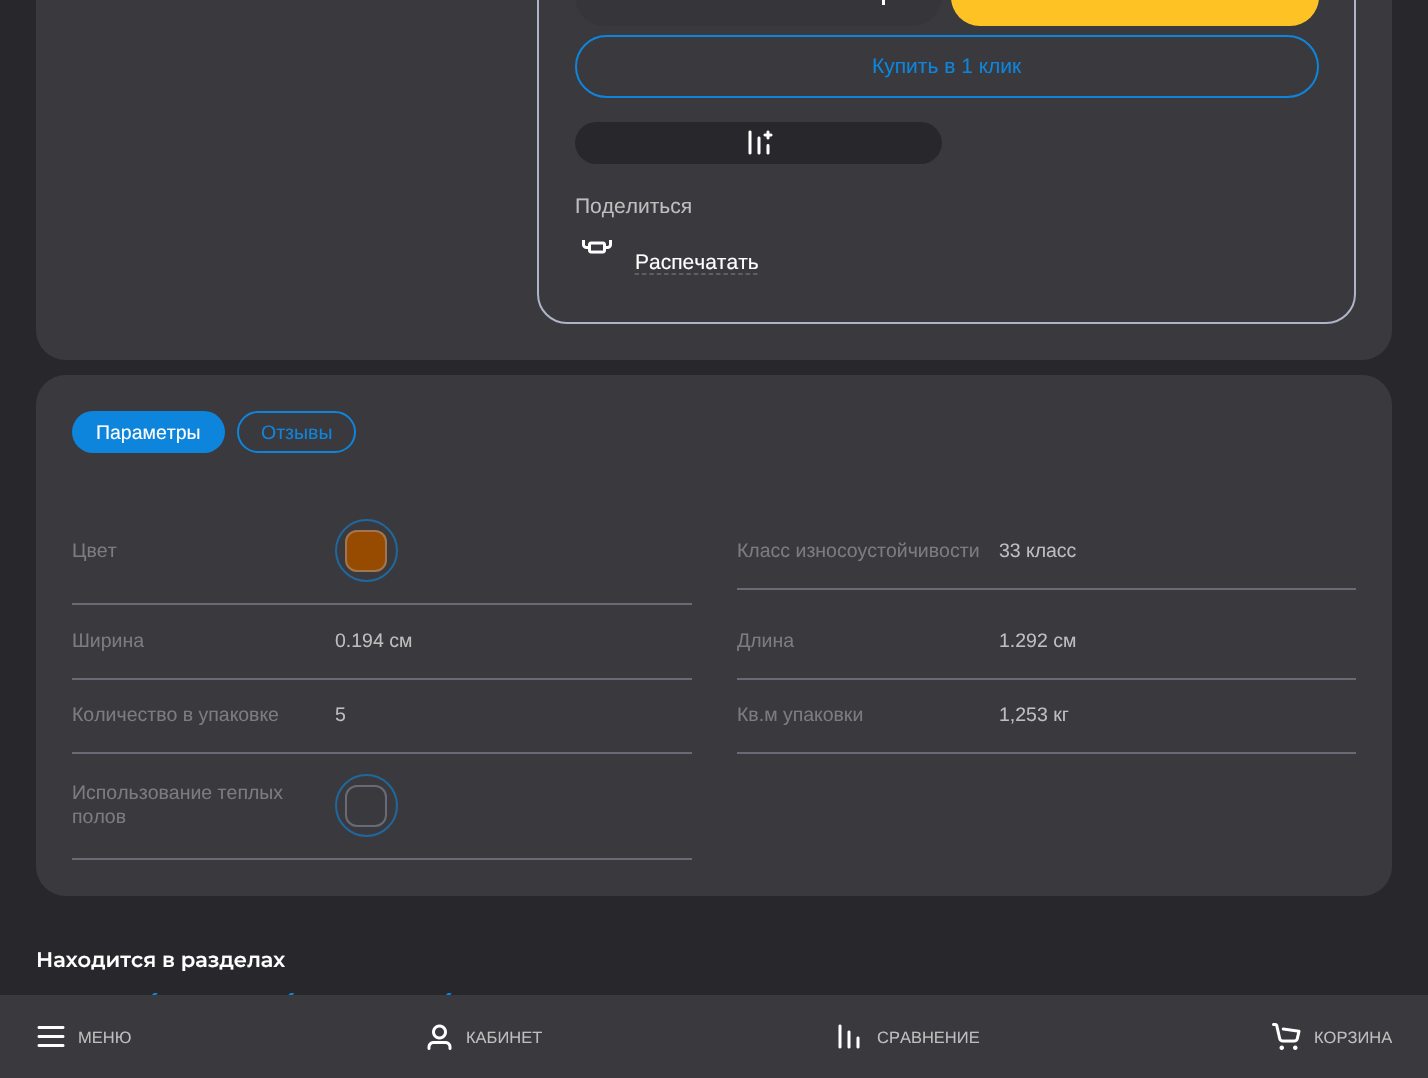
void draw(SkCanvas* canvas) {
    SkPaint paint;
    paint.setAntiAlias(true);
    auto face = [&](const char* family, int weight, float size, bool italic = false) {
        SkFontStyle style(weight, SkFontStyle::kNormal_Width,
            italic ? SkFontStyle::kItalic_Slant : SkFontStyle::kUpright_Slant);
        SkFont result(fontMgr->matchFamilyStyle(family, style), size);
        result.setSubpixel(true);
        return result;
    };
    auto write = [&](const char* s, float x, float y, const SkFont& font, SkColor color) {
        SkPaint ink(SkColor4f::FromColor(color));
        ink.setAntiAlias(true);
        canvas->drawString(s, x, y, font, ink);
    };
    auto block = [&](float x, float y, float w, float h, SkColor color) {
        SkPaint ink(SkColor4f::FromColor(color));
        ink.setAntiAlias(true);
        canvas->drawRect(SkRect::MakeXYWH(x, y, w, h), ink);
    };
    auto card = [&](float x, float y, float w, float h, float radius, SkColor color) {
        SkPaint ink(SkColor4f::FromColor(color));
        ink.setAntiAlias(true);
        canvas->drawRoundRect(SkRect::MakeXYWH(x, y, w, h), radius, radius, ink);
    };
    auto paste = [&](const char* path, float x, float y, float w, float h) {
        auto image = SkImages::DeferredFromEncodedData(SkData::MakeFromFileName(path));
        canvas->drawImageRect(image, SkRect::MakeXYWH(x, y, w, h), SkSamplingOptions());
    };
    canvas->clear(SkColorSetRGB(39, 39, 44));
    card(36, -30, 1356, 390, 30, SkColorSetRGB(57, 57, 62));
    paint.setStyle(SkPaint::kStroke_Style);
    paint.setStrokeWidth(2);
    paint.setColor(SkColorSetRGB(175, 181, 200));
    canvas->drawRoundRect(SkRect::MakeXYWH(538, -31, 817, 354), 29, 29, paint);
    card(575, -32, 367, 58, 31.5f, SkColorSetRGB(53, 53, 58));
    block(882, 0, 3, 5, SK_ColorWHITE);
    card(951, -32, 368, 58, 31.5f, SkColorSetRGB(255, 194, 37));
    paint.setColor(SkColorSetRGB(13, 133, 220));
    canvas->drawRoundRect(SkRect::MakeXYWH(576, 36, 742, 61), 30.5f, 30.5f, paint);
    auto kFont1 = face("Liberation Sans", 400, 21);
    write("Купить в 1 клик", 872, 73, kFont1, SkColorSetRGB(13, 133, 220));
    card(575, 122, 367, 42, 21, SkColorSetRGB(39, 39, 44));
    paste("pic1.png", 748, 130, 25, 25);
    write("Поделиться", 575, 213, kFont1, SkColorSetRGB(190, 190, 190));
    paste("pic2.png", 582, 240, 30, 14);
    write("Распечатать", 635, 269, kFont1, SK_ColorWHITE);
    paint.setStrokeWidth(1.5f);
    paint.setColor(SkColorSetRGB(104, 107, 117));
    paint.setPathEffect(SkDashPathEffect::Make({{4.5f, 2.91f}}, 0));
    canvas->drawPath(SkPathBuilder().moveTo(634.5f, 274).lineTo(757.5f, 274).detach(), paint);
    paint.setPathEffect(nullptr);
    card(36, 375, 1356, 521, 30, SkColorSetRGB(57, 57, 62));
    card(72, 411, 153, 42, 21, SkColorSetRGB(13, 133, 220));
    auto kFont2 = face("Liberation Sans", 400, 19.5f);
    write("Параметры", 96, 439, kFont2, SK_ColorWHITE);
    paint.setStrokeWidth(2);
    paint.setColor(SkColorSetRGB(13, 133, 220));
    canvas->drawRoundRect(SkRect::MakeXYWH(238, 412, 117, 40), 20, 20, paint);
    write("Отзывы", 261, 439, kFont2, SkColorSetRGB(13, 133, 220));
    block(72, 603, 620, 2, SkColorSetRGB(104, 107, 117));
    write("Цвет", 72, 557, kFont2, SkColorSetRGB(124, 124, 126));
    card(345, 530, 42, 42, 12, SkColorSetRGB(150, 75, 0));
    paint.setColor(SkColorSetARGB(102, 175, 181, 200));
    canvas->drawRoundRect(SkRect::MakeXYWH(346, 531, 40, 40), 11, 11, paint);
    paint.setColor(SkColorSetRGB(31, 103, 157));
    canvas->drawCircle(366.5f, 550.5f, 30.5f, paint);
    block(737, 588, 619, 2, SkColorSetRGB(104, 107, 117));
    write("Класс износоустойчивости", 737, 557, kFont2, SkColorSetRGB(124, 124, 126));
    write("33 класс", 999, 557, kFont2, SkColorSetRGB(190, 190, 190));
    block(72, 678, 620, 2, SkColorSetRGB(104, 107, 117));
    write("Ширина", 72, 647, kFont2, SkColorSetRGB(124, 124, 126));
    write("0.194 см", 335, 647, kFont2, SkColorSetRGB(190, 190, 190));
    block(737, 678, 619, 2, SkColorSetRGB(104, 107, 117));
    write("Длина", 737, 647, kFont2, SkColorSetRGB(124, 124, 126));
    write("1.292 см", 999, 647, kFont2, SkColorSetRGB(190, 190, 190));
    block(72, 752, 620, 2, SkColorSetRGB(104, 107, 117));
    write("Количество в упаковке", 72, 721, kFont2, SkColorSetRGB(124, 124, 126));
    write("5", 335, 721, kFont2, SkColorSetRGB(190, 190, 190));
    block(737, 752, 619, 2, SkColorSetRGB(104, 107, 117));
    write("Кв.м упаковки", 737, 721, kFont2, SkColorSetRGB(124, 124, 126));
    write("1,253 кг", 999, 721, kFont2, SkColorSetRGB(190, 190, 190));
    block(72, 858, 620, 2, SkColorSetRGB(104, 107, 117));
    write("Использование теплых", 72, 799, kFont2, SkColorSetRGB(124, 124, 126));
    write("полов", 72, 823, kFont2, SkColorSetRGB(124, 124, 126));
    paint.setColor(SkColorSetRGB(104, 107, 117));
    canvas->drawRoundRect(SkRect::MakeXYWH(346, 786, 40, 40), 11, 11, paint);
    paint.setColor(SkColorSetRGB(31, 103, 157));
    canvas->drawCircle(366.5f, 805.5f, 30.5f, paint);
    auto kFont3 = face("Montserrat", 600, 21);
    write("Находится в разделах", 36, 967, kFont3, SK_ColorWHITE);
    paste("pic3.png", 152, 993, 6, 2);
    paste("pic4.png", 288, 993, 6, 2);
    paste("pic3.png", 446, 993, 6, 2);
    block(0, 995, 1428, 83, SkColorSetRGB(57, 57, 62));
    paste("pic5.png", 37, 1026, 28, 21);
    auto kFont4 = face("Liberation Sans", 400, 16.5f);
    write("МЕНЮ", 78, 1043, kFont4, SkColorSetRGB(190, 190, 190));
    paste("pic6.png", 427, 1024, 25, 26);
    write("КАБИНЕТ", 466, 1043, kFont4, SkColorSetRGB(190, 190, 190));
    paste("pic7.png", 838, 1024, 22, 25);
    write("СРАВНЕНИЕ", 877, 1043, kFont4, SkColorSetRGB(190, 190, 190));
    paste("pic8.png", 1272, 1023, 29, 27);
    write("КОРЗИНА", 1314, 1043, kFont4, SkColorSetRGB(190, 190, 190));
}
